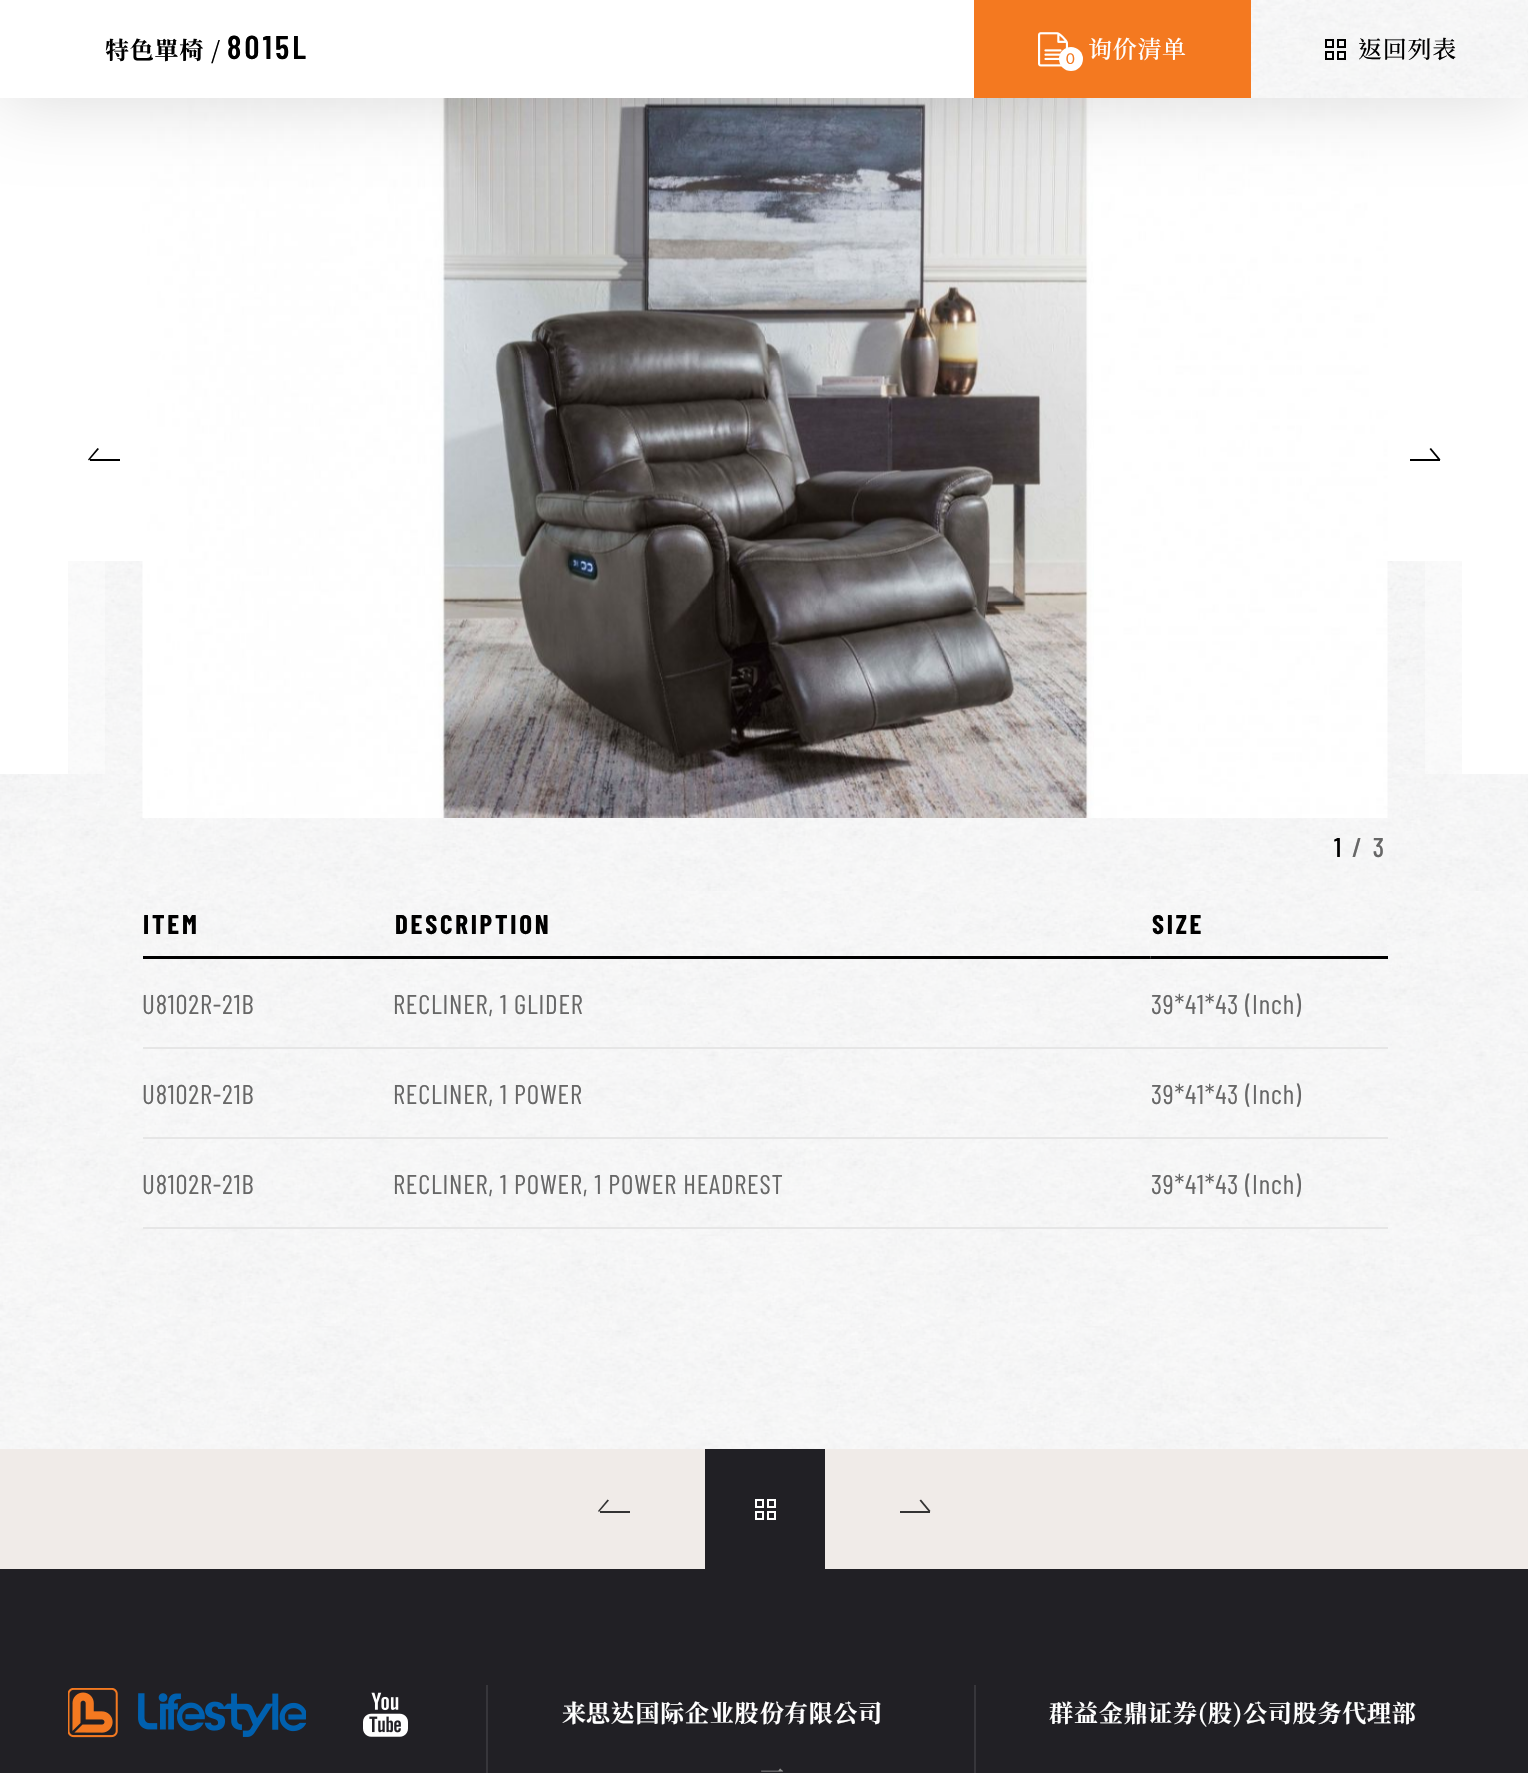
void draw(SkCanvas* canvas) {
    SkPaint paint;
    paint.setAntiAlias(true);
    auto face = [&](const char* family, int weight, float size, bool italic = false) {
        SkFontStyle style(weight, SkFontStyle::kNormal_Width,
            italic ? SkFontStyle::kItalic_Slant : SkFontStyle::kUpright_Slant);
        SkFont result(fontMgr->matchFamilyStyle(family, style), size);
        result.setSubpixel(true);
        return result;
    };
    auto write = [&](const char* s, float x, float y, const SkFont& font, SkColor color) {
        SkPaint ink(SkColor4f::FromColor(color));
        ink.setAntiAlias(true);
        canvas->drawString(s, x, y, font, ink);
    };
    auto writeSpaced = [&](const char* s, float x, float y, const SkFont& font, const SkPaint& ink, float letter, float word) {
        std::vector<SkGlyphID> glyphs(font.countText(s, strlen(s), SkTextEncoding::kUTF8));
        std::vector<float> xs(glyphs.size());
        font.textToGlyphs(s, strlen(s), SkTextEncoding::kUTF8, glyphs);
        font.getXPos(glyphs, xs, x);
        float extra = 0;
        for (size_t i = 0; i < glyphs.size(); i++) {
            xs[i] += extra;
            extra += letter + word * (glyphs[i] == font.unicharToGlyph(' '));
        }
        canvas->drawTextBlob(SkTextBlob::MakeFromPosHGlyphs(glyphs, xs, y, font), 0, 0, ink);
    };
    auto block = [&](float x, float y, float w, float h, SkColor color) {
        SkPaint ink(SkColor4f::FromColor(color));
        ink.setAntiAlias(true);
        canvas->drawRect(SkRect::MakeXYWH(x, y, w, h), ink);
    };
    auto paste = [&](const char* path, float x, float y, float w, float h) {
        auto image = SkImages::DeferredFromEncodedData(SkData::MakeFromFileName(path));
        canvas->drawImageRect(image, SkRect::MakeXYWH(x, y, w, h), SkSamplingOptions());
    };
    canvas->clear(SK_ColorWHITE);
    paste("pic3.png", 0, 561, 1528, 330);
    paste("pic4.png", 142, 98, 1246, 720);
    paint.setColor(SkColorSetARGB(38, 0, 0, 0));
    paint.setMaskFilter(SkMaskFilter::MakeBlur(kNormal_SkBlurStyle, 37.5f));
    canvas->drawRect(SkRect::MakeXYWH(0, 0, 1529, 98), paint);
    paint.setMaskFilter(nullptr);
    block(0, 0, 974, 98, SK_ColorWHITE);
    auto kFont1 = face("Noto Serif TC", 700, 24);
    paint.setColor(SK_ColorBLACK);
    writeSpaced("特色單椅 /", 105, 59, kFont1, paint, 0.75f, 0);
    auto kFont2 = face("Barlow Condensed", 600, 33);
    writeSpaced("8015L", 227, 59, kFont2, paint, 3.25f, 0);
    block(974, 0, 277, 98, SkColorSetRGB(244, 121, 32));
    paste("pic1.png", 1038, 32, 30, 35);
    paint.setColor(SK_ColorWHITE);
    canvas->drawCircle(1071, 59, 12, paint);
    auto kFont3 = face("Lato", 400, 15);
    write("0", 1066, 64, kFont3, SkColorSetRGB(244, 121, 32));
    auto kFont4 = face("Noto Serif TC", 500, 24);
    writeSpaced("询价清", 1088, 58, kFont4, paint, 0.75f, 0);
    auto kFont5 = face("Noto Serif SC", 500, 24);
    writeSpaced("单", 1162, 58, kFont5, paint, 0.75f, 0);
    paste("pic2.png", 1251, 0, 277, 98);
    paint.setStyle(SkPaint::kStroke_Style);
    paint.setStrokeWidth(2);
    paint.setColor(SK_ColorBLACK);
    canvas->drawRect(SkRect::MakeXYWH(1326, 40, 7, 7), paint);
    canvas->drawRect(SkRect::MakeXYWH(1338, 40, 7, 7), paint);
    canvas->drawRect(SkRect::MakeXYWH(1326, 52, 7, 7), paint);
    canvas->drawRect(SkRect::MakeXYWH(1338, 52, 7, 7), paint);
    paint.setStyle(SkPaint::kFill_Style);
    writeSpaced("返回列表", 1358, 58, kFont4, paint, 0.75f, 0);
    block(0, 561, 68, 213, SK_ColorWHITE);
    block(68, 561, 37, 213, SkColorSetARGB(102, 255, 255, 255));
    block(1425, 561, 37, 213, SkColorSetARGB(102, 255, 255, 255));
    block(1462, 561, 66, 213, SK_ColorWHITE);
    block(90, 459, 30, 2, SK_ColorBLACK);
    canvas->drawPath(SkPathBuilder().moveTo(88, 459.5f).lineTo(97.5f, 448).lineTo(99, 449).lineTo(89, 460.5f).close().detach(), paint);
    block(1410, 459, 30, 2, SK_ColorBLACK);
    canvas->drawPath(SkPathBuilder().moveTo(1431, 448).lineTo(1440.5f, 459.5f).lineTo(1439, 460.5f).lineTo(1429.5f, 449).close().detach(), paint);
    auto kFont6 = face("Barlow Condensed", 500, 27);
    writeSpaced("1", 1334, 857, kFont6, paint, 2.75f, 0);
    paint.setColor(SkColorSetRGB(103, 103, 103));
    writeSpaced("/ 3", 1352, 857, kFont6, paint, 2.75f, 0);
    paste("pic5.png", 0, 891, 1528, 558);
    paste("pic6.png", 143, 891, 250, 65);
    block(143, 956, 1008, 3, SK_ColorBLACK);
    auto kFont7 = face("Barlow Condensed", 700, 27);
    paint.setColor(SK_ColorBLACK);
    writeSpaced("ITEM", 143, 934, kFont7, paint, 2.75f, 0);
    paste("pic7.png", 393, 891, 756, 65);
    writeSpaced("DESCRIPTION", 395, 934, kFont7, paint, 2.75f, 0);
    paste("pic8.png", 1150, 891, 237, 68);
    block(1151, 956, 237, 3, SK_ColorBLACK);
    writeSpaced("SIZE", 1152, 934, kFont7, paint, 2.75f, 0);
    block(143, 1047, 1245, 2, SkColorSetRGB(230, 230, 230));
    auto kFont8 = face("Barlow Condensed", 400, 27);
    paint.setColor(SkColorSetRGB(103, 103, 103));
    writeSpaced("U8102R-21B", 142, 1014, kFont8, paint, 0.8f, 0);
    writeSpaced("RECLINER, 1 GLIDER", 393, 1014, kFont8, paint, 0.8f, 0);
    writeSpaced("39*41*43 (Inch)", 1151, 1014, kFont8, paint, 0.8f, 0);
    block(143, 1137, 1245, 2, SkColorSetRGB(230, 230, 230));
    writeSpaced("U8102R-21B", 142, 1104, kFont8, paint, 0.8f, 0);
    writeSpaced("RECLINER, 1 POWER", 393, 1104, kFont8, paint, 0.8f, 0);
    writeSpaced("39*41*43 (Inch)", 1151, 1104, kFont8, paint, 0.8f, 0);
    block(143, 1227, 1245, 2, SkColorSetRGB(230, 230, 230));
    writeSpaced("U8102R-21B", 142, 1194, kFont8, paint, 0.8f, 0);
    writeSpaced("RECLINER, 1 POWER, 1 POWER HEADREST", 393, 1194, kFont8, paint, 0.8f, 0);
    writeSpaced("39*41*43 (Inch)", 1151, 1194, kFont8, paint, 0.8f, 0);
    block(0, 1449, 1528, 120, SkColorSetRGB(240, 235, 232));
    block(600, 1511, 30, 2, SkColorSetRGB(51, 51, 51));
    paint.setColor(SkColorSetRGB(51, 51, 51));
    canvas->drawPath(SkPathBuilder().moveTo(598, 1511).lineTo(607.5f, 1499.5f).lineTo(609, 1500.5f).lineTo(599, 1512).close().detach(), paint);
    block(705, 1449, 120, 120, SkColorSetRGB(33, 32, 37));
    paint.setStyle(SkPaint::kStroke_Style);
    paint.setColor(SK_ColorWHITE);
    canvas->drawRect(SkRect::MakeXYWH(756, 1500, 7, 7), paint);
    canvas->drawRect(SkRect::MakeXYWH(768, 1500, 7, 7), paint);
    canvas->drawRect(SkRect::MakeXYWH(756, 1512, 7, 7), paint);
    canvas->drawRect(SkRect::MakeXYWH(768, 1512, 7, 7), paint);
    block(900, 1511, 30, 2, SkColorSetRGB(51, 51, 51));
    paint.setStyle(SkPaint::kFill_Style);
    paint.setColor(SkColorSetRGB(51, 51, 51));
    canvas->drawPath(SkPathBuilder().moveTo(921, 1499.5f).lineTo(930.5f, 1511).lineTo(929, 1512).lineTo(919.5f, 1500.5f).close().detach(), paint);
    block(0, 1569, 1528, 204, SkColorSetRGB(33, 32, 37));
    paste("pic9.png", 68, 1688, 238, 50);
    paste("pic10.png", 363, 1692, 45, 45);
    block(486, 1685, 2, 88, SkColorSetRGB(55, 54, 59));
    auto kFont9 = face("Noto Serif SC", 700, 24);
    paint.setColor(SK_ColorWHITE);
    writeSpaced("来", 562, 1722, kFont9, paint, 0.75f, 0);
    writeSpaced("思达国际企业股", 586, 1722, kFont1, paint, 0.75f, 0);
    writeSpaced("份", 760, 1722, kFont9, paint, 0.75f, 0);
    writeSpaced("有限公司", 784, 1722, kFont1, paint, 0.75f, 0);
    block(974, 1685, 2, 88, SkColorSetRGB(55, 54, 59));
    paint.setColor(SkColorSetRGB(143, 143, 143));
    writeSpaced("一", 760, 1781, kFont4, paint, 0.75f, 0);
    paint.setColor(SK_ColorWHITE);
    writeSpaced("群", 1049, 1722, kFont1, paint, 0.75f, 0);
    writeSpaced("益", 1074, 1722, kFont9, paint, 0.75f, 0);
    writeSpaced("金鼎", 1099, 1722, kFont1, paint, 0.75f, 0);
    writeSpaced("证", 1148, 1722, kFont9, paint, 0.75f, 0);
    writeSpaced("券(股)公司股务代理部", 1173, 1722, kFont1, paint, 0.75f, 0);
}
